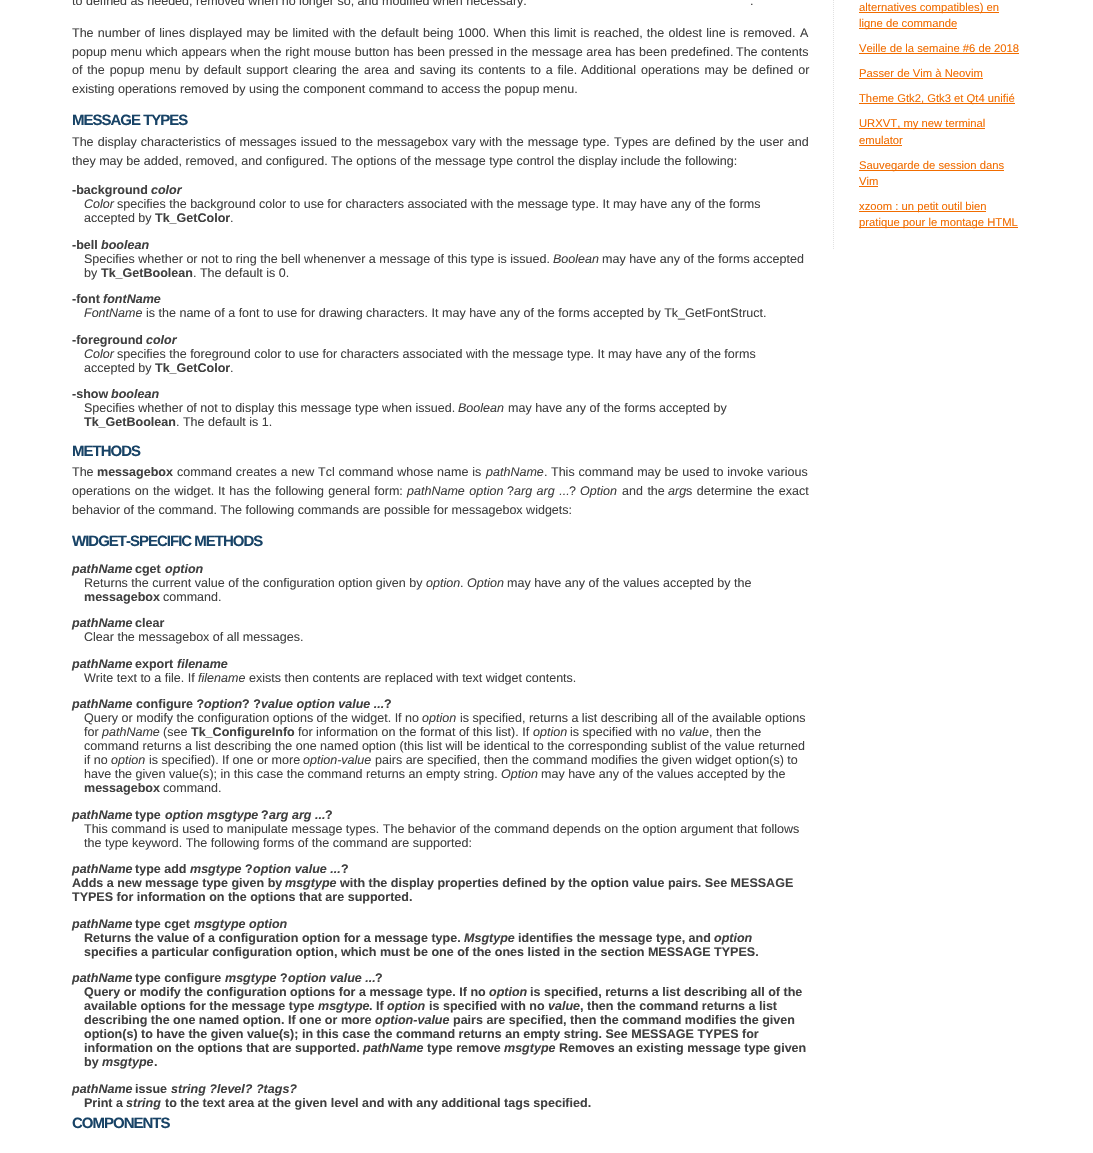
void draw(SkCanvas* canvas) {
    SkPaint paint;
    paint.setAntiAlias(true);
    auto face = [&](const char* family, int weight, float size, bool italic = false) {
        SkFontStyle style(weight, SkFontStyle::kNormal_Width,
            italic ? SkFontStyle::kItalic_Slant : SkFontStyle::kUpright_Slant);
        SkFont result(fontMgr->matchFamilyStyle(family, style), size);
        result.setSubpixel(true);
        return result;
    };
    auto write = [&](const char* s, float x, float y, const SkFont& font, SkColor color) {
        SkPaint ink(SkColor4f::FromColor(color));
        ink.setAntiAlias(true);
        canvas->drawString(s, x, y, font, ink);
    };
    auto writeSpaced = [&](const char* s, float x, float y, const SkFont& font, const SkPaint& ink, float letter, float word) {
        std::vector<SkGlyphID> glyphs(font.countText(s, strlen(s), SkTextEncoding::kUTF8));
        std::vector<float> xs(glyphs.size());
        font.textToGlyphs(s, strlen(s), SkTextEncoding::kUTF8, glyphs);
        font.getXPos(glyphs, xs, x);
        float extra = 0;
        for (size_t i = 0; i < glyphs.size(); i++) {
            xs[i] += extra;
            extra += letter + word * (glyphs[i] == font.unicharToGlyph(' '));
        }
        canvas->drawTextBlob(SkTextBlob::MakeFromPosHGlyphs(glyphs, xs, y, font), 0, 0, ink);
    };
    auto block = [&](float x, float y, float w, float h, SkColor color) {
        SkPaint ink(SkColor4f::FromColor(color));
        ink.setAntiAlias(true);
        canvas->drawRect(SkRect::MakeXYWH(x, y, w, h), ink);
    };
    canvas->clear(SK_ColorWHITE);
    auto kFont1 = face("Liberation Sans", 400, 12.53f);
    write("to defined as needed, removed when no longer so, and modified when necessary.", 72, 5, kFont1, SkColorSetRGB(64, 64, 64));
    write(".", 750, 5, kFont1, SkColorSetRGB(64, 64, 64));
    paint.setColor(SkColorSetRGB(64, 64, 64));
    writeSpaced("The number of lines displayed may be limited with the default being 1000. When this limit is reached, the oldest line", 72, 37, kFont1, paint, 0, 0.75f);
    writeSpaced("is removed.", 730, 37, kFont1, paint, 0, 0.75f);
    write("A", 800, 37, kFont1, SkColorSetRGB(64, 64, 64));
    writeSpaced("popup menu which appears when the right mouse button has been pressed in the message area has been predefined.", 72, 56, kFont1, paint, 0, 0.25f);
    write("The contents", 736, 56, kFont1, SkColorSetRGB(64, 64, 64));
    writeSpaced("of the popup menu by default support clearing the area and saving its contents to a file.", 72, 74, kFont1, paint, 0, 1.4f);
    writeSpaced("Additional operations may be defined or", 581, 74, kFont1, paint, 0, 1.5f);
    write("existing operations removed by using the component command to access the popup menu.", 72, 93, kFont1, SkColorSetRGB(64, 64, 64));
    auto kFont2 = face("Liberation Sans", 700, 15);
    paint.setColor(SkColorSetRGB(24, 67, 102));
    writeSpaced("MESSAGE TYPES", 72, 125, kFont2, paint, -1, 0);
    paint.setColor(SkColorSetRGB(64, 64, 64));
    writeSpaced("The display characteristics of messages issued to the messagebox vary with the message type.", 72, 146, kFont1, paint, 0, 0.6f);
    writeSpaced("Types are defined by the user and", 614, 146, kFont1, paint, 0, 0.75f);
    write("they may be added, removed, and configured. The options of the message type control the display include the following:", 72, 165, kFont1, SkColorSetRGB(64, 64, 64));
    auto kFont3 = face("Liberation Sans", 700, 12.53f);
    write("-background", 72, 194, kFont3, SkColorSetRGB(64, 64, 64));
    auto kFont4 = face("Liberation Sans", 700, 12.53f, true);
    write("color", 151, 194, kFont4, SkColorSetRGB(64, 64, 64));
    auto kFont5 = face("Liberation Sans", 400, 12.53f, true);
    write("Color", 84, 208, kFont5, SkColorSetRGB(64, 64, 64));
    write("specifies the background color to use for characters associated with the message type. It may have any of the forms", 117, 208, kFont1, SkColorSetRGB(64, 64, 64));
    write("accepted by", 84, 222, kFont1, SkColorSetRGB(64, 64, 64));
    write("Tk_GetColor", 155, 222, kFont3, SkColorSetRGB(64, 64, 64));
    write(".", 230, 222, kFont1, SkColorSetRGB(64, 64, 64));
    write("-bell", 72, 249, kFont3, SkColorSetRGB(64, 64, 64));
    write("boolean", 101, 249, kFont4, SkColorSetRGB(64, 64, 64));
    write("Specifies whether or not to ring the bell whenenver a message of this type is issued.", 84, 263, kFont1, SkColorSetRGB(64, 64, 64));
    write("Boolean", 553, 263, kFont5, SkColorSetRGB(64, 64, 64));
    write("may have any of the forms accepted", 602, 263, kFont1, SkColorSetRGB(64, 64, 64));
    write("by", 84, 277, kFont1, SkColorSetRGB(64, 64, 64));
    write("Tk_GetBoolean", 101, 277, kFont3, SkColorSetRGB(64, 64, 64));
    write(". The default is 0.", 193, 277, kFont1, SkColorSetRGB(64, 64, 64));
    write("-font", 72, 303, kFont3, SkColorSetRGB(64, 64, 64));
    write("fontName", 103, 303, kFont4, SkColorSetRGB(64, 64, 64));
    write("FontName", 84, 317, kFont5, SkColorSetRGB(64, 64, 64));
    write("is the name of a font to use for drawing characters. It may have any of the forms accepted by Tk_GetFontStruct.", 146, 317, kFont1, SkColorSetRGB(64, 64, 64));
    write("-foreground", 72, 344, kFont3, SkColorSetRGB(64, 64, 64));
    write("color", 146, 344, kFont4, SkColorSetRGB(64, 64, 64));
    write("Color", 84, 358, kFont5, SkColorSetRGB(64, 64, 64));
    write("specifies the foreground color to use for characters associated with the message type. It may have any of the forms", 117, 358, kFont1, SkColorSetRGB(64, 64, 64));
    write("accepted by", 84, 372, kFont1, SkColorSetRGB(64, 64, 64));
    write("Tk_GetColor", 155, 372, kFont3, SkColorSetRGB(64, 64, 64));
    write(".", 230, 372, kFont1, SkColorSetRGB(64, 64, 64));
    write("-show", 72, 398, kFont3, SkColorSetRGB(64, 64, 64));
    write("boolean", 111, 398, kFont4, SkColorSetRGB(64, 64, 64));
    write("Specifies whether of not to display this message type when issued.", 84, 412, kFont1, SkColorSetRGB(64, 64, 64));
    write("Boolean", 458, 412, kFont5, SkColorSetRGB(64, 64, 64));
    write("may have any of the forms accepted by", 508, 412, kFont1, SkColorSetRGB(64, 64, 64));
    write("Tk_GetBoolean", 84, 426, kFont3, SkColorSetRGB(64, 64, 64));
    write(". The default is 1.", 176, 426, kFont1, SkColorSetRGB(64, 64, 64));
    paint.setColor(SkColorSetRGB(24, 67, 102));
    writeSpaced("METHODS", 72, 456, kFont2, paint, -1, 0);
    write("The", 72, 476, kFont1, SkColorSetRGB(64, 64, 64));
    write("messagebox", 97, 476, kFont3, SkColorSetRGB(64, 64, 64));
    paint.setColor(SkColorSetRGB(64, 64, 64));
    writeSpaced("command creates a new Tcl command whose name is", 177, 476, kFont1, paint, 0, 0.25f);
    write("pathName", 486, 476, kFont5, SkColorSetRGB(64, 64, 64));
    write(".", 544, 476, kFont1, SkColorSetRGB(64, 64, 64));
    writeSpaced("This command may be used to invoke various", 551, 476, kFont1, paint, 0, 0.25f);
    writeSpaced("operations on the widget.", 72, 495, kFont1, paint, 0, 0.75f);
    writeSpaced("It has the following general form:", 218, 495, kFont1, paint, 0, 0.75f);
    writeSpaced("pathName option", 407, 495, kFont5, paint, 0, 1);
    write("?", 507, 495, kFont1, SkColorSetRGB(64, 64, 64));
    writeSpaced("arg arg ...", 514, 495, kFont5, paint, 0, 1);
    write("?", 569, 495, kFont1, SkColorSetRGB(64, 64, 64));
    write("Option", 580, 495, kFont5, SkColorSetRGB(64, 64, 64));
    writeSpaced("and the", 622, 495, kFont1, paint, 0, 1);
    write("arg", 668, 495, kFont5, SkColorSetRGB(64, 64, 64));
    writeSpaced("s determine the exact", 686, 495, kFont1, paint, 0, 1);
    write("behavior of the command. The following commands are possible for messagebox widgets:", 72, 514, kFont1, SkColorSetRGB(64, 64, 64));
    paint.setColor(SkColorSetRGB(24, 67, 102));
    writeSpaced("WIDGET-SPECIFIC METHODS", 72, 546, kFont2, paint, -1, 0);
    write("pathName", 72, 573, kFont4, SkColorSetRGB(64, 64, 64));
    write("cget", 135, 573, kFont3, SkColorSetRGB(64, 64, 64));
    write("option", 165, 573, kFont4, SkColorSetRGB(64, 64, 64));
    write("Returns the current value of the configuration option given by", 84, 587, kFont1, SkColorSetRGB(64, 64, 64));
    write("option", 426, 587, kFont5, SkColorSetRGB(64, 64, 64));
    write(".", 460, 587, kFont1, SkColorSetRGB(64, 64, 64));
    write("Option", 467, 587, kFont5, SkColorSetRGB(64, 64, 64));
    write("may have any of the values accepted by the", 507, 587, kFont1, SkColorSetRGB(64, 64, 64));
    write("messagebox", 84, 601, kFont3, SkColorSetRGB(64, 64, 64));
    write("command.", 163, 601, kFont1, SkColorSetRGB(64, 64, 64));
    write("pathName", 72, 627, kFont4, SkColorSetRGB(64, 64, 64));
    write("clear", 135, 627, kFont3, SkColorSetRGB(64, 64, 64));
    write("Clear the messagebox of all messages.", 84, 641, kFont1, SkColorSetRGB(64, 64, 64));
    write("pathName", 72, 668, kFont4, SkColorSetRGB(64, 64, 64));
    write("export", 135, 668, kFont3, SkColorSetRGB(64, 64, 64));
    write("filename", 177, 668, kFont4, SkColorSetRGB(64, 64, 64));
    write("Write text to a file. If", 84, 682, kFont1, SkColorSetRGB(64, 64, 64));
    write("filename", 198, 682, kFont5, SkColorSetRGB(64, 64, 64));
    write("exists then contents are replaced with text widget contents.", 249, 682, kFont1, SkColorSetRGB(64, 64, 64));
    write("pathName", 72, 708, kFont4, SkColorSetRGB(64, 64, 64));
    write("configure ?", 136, 708, kFont3, SkColorSetRGB(64, 64, 64));
    write("option", 204, 708, kFont4, SkColorSetRGB(64, 64, 64));
    write("? ?", 242, 708, kFont3, SkColorSetRGB(64, 64, 64));
    write("value option value ...", 261, 708, kFont4, SkColorSetRGB(64, 64, 64));
    write("?", 384, 708, kFont3, SkColorSetRGB(64, 64, 64));
    write("Query or modify the configuration options of the widget. If no", 84, 722, kFont1, SkColorSetRGB(64, 64, 64));
    write("option", 422, 722, kFont5, SkColorSetRGB(64, 64, 64));
    write("is specified, returns a list describing all of the available options", 460, 722, kFont1, SkColorSetRGB(64, 64, 64));
    write("for", 84, 736, kFont1, SkColorSetRGB(64, 64, 64));
    write("pathName", 102, 736, kFont5, SkColorSetRGB(64, 64, 64));
    write("(see", 163, 736, kFont1, SkColorSetRGB(64, 64, 64));
    write("Tk_ConfigureInfo", 191, 736, kFont3, SkColorSetRGB(64, 64, 64));
    write("for information on the format of this list). If", 298, 736, kFont1, SkColorSetRGB(64, 64, 64));
    write("option", 533, 736, kFont5, SkColorSetRGB(64, 64, 64));
    write("is specified with no", 570, 736, kFont1, SkColorSetRGB(64, 64, 64));
    write("value", 679, 736, kFont5, SkColorSetRGB(64, 64, 64));
    write(", then the", 709, 736, kFont1, SkColorSetRGB(64, 64, 64));
    write("command returns a list describing the one named option (this list will be identical to the corresponding sublist of the value returned", 84, 750, kFont1, SkColorSetRGB(64, 64, 64));
    write("if no", 84, 764, kFont1, SkColorSetRGB(64, 64, 64));
    write("option", 111, 764, kFont5, SkColorSetRGB(64, 64, 64));
    write("is specified). If one or more", 149, 764, kFont1, SkColorSetRGB(64, 64, 64));
    write("option-value", 303, 764, kFont5, SkColorSetRGB(64, 64, 64));
    write("pairs are specified, then the command modifies the given widget option(s) to", 375, 764, kFont1, SkColorSetRGB(64, 64, 64));
    write("have the given value(s); in this case the command returns an empty string.", 84, 778, kFont1, SkColorSetRGB(64, 64, 64));
    write("Option", 501, 778, kFont5, SkColorSetRGB(64, 64, 64));
    write("may have any of the values accepted by the", 541, 778, kFont1, SkColorSetRGB(64, 64, 64));
    write("messagebox", 84, 792, kFont3, SkColorSetRGB(64, 64, 64));
    write("command.", 163, 792, kFont1, SkColorSetRGB(64, 64, 64));
    write("pathName", 72, 819, kFont4, SkColorSetRGB(64, 64, 64));
    write("type", 135, 819, kFont3, SkColorSetRGB(64, 64, 64));
    write("option msgtype", 165, 819, kFont4, SkColorSetRGB(64, 64, 64));
    write("?", 261, 819, kFont3, SkColorSetRGB(64, 64, 64));
    write("arg arg ...", 269, 819, kFont4, SkColorSetRGB(64, 64, 64));
    write("?", 325, 819, kFont3, SkColorSetRGB(64, 64, 64));
    write("This command is used to manipulate message types. The behavior of the command depends on the option argument that follows", 84, 833, kFont1, SkColorSetRGB(64, 64, 64));
    write("the type keyword. The following forms of the command are supported:", 84, 847, kFont1, SkColorSetRGB(64, 64, 64));
    write("pathName", 72, 873, kFont4, SkColorSetRGB(64, 64, 64));
    write("type add", 135, 873, kFont3, SkColorSetRGB(64, 64, 64));
    write("msgtype", 190, 873, kFont4, SkColorSetRGB(64, 64, 64));
    write("?", 245, 873, kFont3, SkColorSetRGB(64, 64, 64));
    write("option value ...", 253, 873, kFont4, SkColorSetRGB(64, 64, 64));
    write("?", 341, 873, kFont3, SkColorSetRGB(64, 64, 64));
    write("Adds a new message type given by", 72, 887, kFont3, SkColorSetRGB(64, 64, 64));
    write("msgtype", 285, 887, kFont4, SkColorSetRGB(64, 64, 64));
    write("with the display properties defined by the option value pairs. See MESSAGE", 340, 887, kFont3, SkColorSetRGB(64, 64, 64));
    write("TYPES for information on the options that are supported.", 72, 901, kFont3, SkColorSetRGB(64, 64, 64));
    write("pathName", 72, 928, kFont4, SkColorSetRGB(64, 64, 64));
    write("type cget", 135, 928, kFont3, SkColorSetRGB(64, 64, 64));
    write("msgtype option", 194, 928, kFont4, SkColorSetRGB(64, 64, 64));
    write("Returns the value of a configuration option for a message type.", 84, 942, kFont3, SkColorSetRGB(64, 64, 64));
    write("Msgtype", 464, 942, kFont4, SkColorSetRGB(64, 64, 64));
    write("identifies the message type, and", 518, 942, kFont3, SkColorSetRGB(64, 64, 64));
    write("option", 714, 942, kFont4, SkColorSetRGB(64, 64, 64));
    write("specifies a particular configuration option, which must be one of the ones listed in the section MESSAGE TYPES.", 84, 956, kFont3, SkColorSetRGB(64, 64, 64));
    write("pathName", 72, 982, kFont4, SkColorSetRGB(64, 64, 64));
    write("type configure", 135, 982, kFont3, SkColorSetRGB(64, 64, 64));
    write("msgtype", 225, 982, kFont4, SkColorSetRGB(64, 64, 64));
    write("?", 280, 982, kFont3, SkColorSetRGB(64, 64, 64));
    write("option value ...", 288, 982, kFont4, SkColorSetRGB(64, 64, 64));
    write("?", 375, 982, kFont3, SkColorSetRGB(64, 64, 64));
    write("Query or modify the configuration options for a message type. If no", 84, 996, kFont3, SkColorSetRGB(64, 64, 64));
    write("option", 489, 996, kFont4, SkColorSetRGB(64, 64, 64));
    write("is specified, returns a list describing all of the", 530, 996, kFont3, SkColorSetRGB(64, 64, 64));
    write("available options for the message type", 84, 1010, kFont3, SkColorSetRGB(64, 64, 64));
    write("msgtype", 318, 1010, kFont4, SkColorSetRGB(64, 64, 64));
    write(". If", 369, 1010, kFont3, SkColorSetRGB(64, 64, 64));
    write("option", 387, 1010, kFont4, SkColorSetRGB(64, 64, 64));
    write("is specified with no", 429, 1010, kFont3, SkColorSetRGB(64, 64, 64));
    write("value", 548, 1010, kFont4, SkColorSetRGB(64, 64, 64));
    write(", then the command returns a list", 580, 1010, kFont3, SkColorSetRGB(64, 64, 64));
    write("describing the one named option. If one or more", 84, 1024, kFont3, SkColorSetRGB(64, 64, 64));
    write("option-value", 375, 1024, kFont4, SkColorSetRGB(64, 64, 64));
    write("pairs are specified, then the command modifies the given", 453, 1024, kFont3, SkColorSetRGB(64, 64, 64));
    write("option(s) to have the given value(s); in this case the command returns an empty string. See MESSAGE TYPES for", 84, 1038, kFont3, SkColorSetRGB(64, 64, 64));
    write("information on the options that are supported.", 84, 1052, kFont3, SkColorSetRGB(64, 64, 64));
    write("pathName", 363, 1052, kFont4, SkColorSetRGB(64, 64, 64));
    write("type remove", 427, 1052, kFont3, SkColorSetRGB(64, 64, 64));
    write("msgtype", 504, 1052, kFont4, SkColorSetRGB(64, 64, 64));
    write("Removes an existing message type given", 559, 1052, kFont3, SkColorSetRGB(64, 64, 64));
    write("by", 84, 1066, kFont3, SkColorSetRGB(64, 64, 64));
    write("msgtype", 102, 1066, kFont4, SkColorSetRGB(64, 64, 64));
    write(".", 154, 1066, kFont3, SkColorSetRGB(64, 64, 64));
    write("pathName", 72, 1093, kFont4, SkColorSetRGB(64, 64, 64));
    write("issue", 135, 1093, kFont3, SkColorSetRGB(64, 64, 64));
    write("string ?level? ?tags?", 171, 1093, kFont4, SkColorSetRGB(64, 64, 64));
    write("Print a", 84, 1107, kFont3, SkColorSetRGB(64, 64, 64));
    write("string", 126, 1107, kFont4, SkColorSetRGB(64, 64, 64));
    write("to the text area at the given level and with any additional tags specified.", 165, 1107, kFont3, SkColorSetRGB(64, 64, 64));
    writeSpaced("COMPONENTS", 72, 1128, kFont2, paint, -1, 0);
    paint.setStyle(SkPaint::kStroke_Style);
    paint.setStrokeWidth(1);
    paint.setColor(SkColorSetRGB(225, 225, 225));
    paint.setPathEffect(SkDashPathEffect::Make({{1, 1}}, 0));
    canvas->drawPath(SkPathBuilder().moveTo(833.5f, -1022).lineTo(833.5f, 249).detach(), paint);
    paint.setPathEffect(nullptr);
    block(859, 12, 140, 1, SkColorSetRGB(241, 108, 0));
    auto kFont6 = face("Liberation Sans", 400, 11.25f);
    write("alternatives compatibles) en", 859, 11, kFont6, SkColorSetRGB(241, 108, 0));
    block(859, 28, 98, 1, SkColorSetRGB(241, 108, 0));
    write("ligne de commande", 859, 27, kFont6, SkColorSetRGB(241, 108, 0));
    write("Veille de la semaine #6 de 2018", 859, 52, kFont6, SkColorSetRGB(241, 108, 0));
    block(859, 53, 160, 1, SkColorSetRGB(241, 108, 0));
    write("Passer de Vim à Neovim", 859, 77, kFont6, SkColorSetRGB(241, 108, 0));
    block(859, 78, 124, 1, SkColorSetRGB(241, 108, 0));
    block(859, 103, 156, 1, SkColorSetRGB(241, 108, 0));
    write("Theme Gtk2, Gtk3 et Qt4 unifié", 859, 102, kFont6, SkColorSetRGB(241, 108, 0));
    block(859, 128, 126, 1, SkColorSetRGB(241, 108, 0));
    write("URXVT, my new terminal", 859, 127, kFont6, SkColorSetRGB(241, 108, 0));
    write("emulator", 859, 144, kFont6, SkColorSetRGB(241, 108, 0));
    block(859, 145, 43, 1, SkColorSetRGB(241, 108, 0));
    block(859, 170, 145, 1, SkColorSetRGB(241, 108, 0));
    write("Sauvegarde de session dans", 859, 169, kFont6, SkColorSetRGB(241, 108, 0));
    write("Vim", 859, 185, kFont6, SkColorSetRGB(241, 108, 0));
    block(859, 186, 19, 1, SkColorSetRGB(241, 108, 0));
    block(859, 211, 127, 1, SkColorSetRGB(241, 108, 0));
    write("xzoom : un petit outil bien", 859, 210, kFont6, SkColorSetRGB(241, 108, 0));
    block(859, 227, 159, 1, SkColorSetRGB(241, 108, 0));
    write("pratique pour le montage HTML", 859, 226, kFont6, SkColorSetRGB(241, 108, 0));
}
